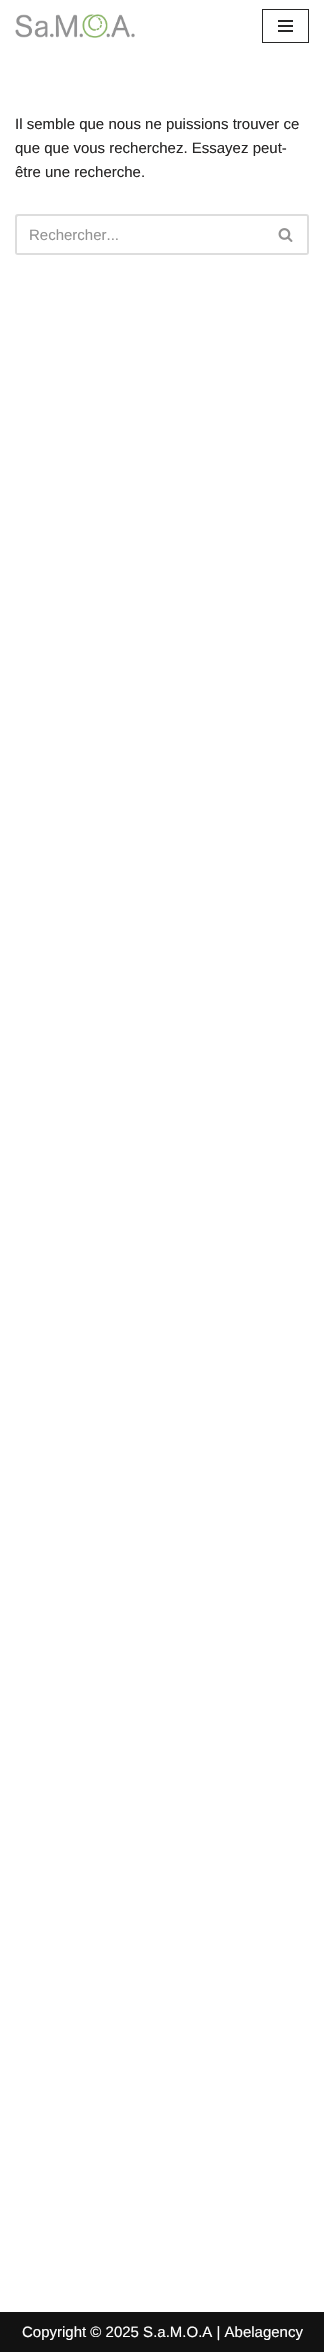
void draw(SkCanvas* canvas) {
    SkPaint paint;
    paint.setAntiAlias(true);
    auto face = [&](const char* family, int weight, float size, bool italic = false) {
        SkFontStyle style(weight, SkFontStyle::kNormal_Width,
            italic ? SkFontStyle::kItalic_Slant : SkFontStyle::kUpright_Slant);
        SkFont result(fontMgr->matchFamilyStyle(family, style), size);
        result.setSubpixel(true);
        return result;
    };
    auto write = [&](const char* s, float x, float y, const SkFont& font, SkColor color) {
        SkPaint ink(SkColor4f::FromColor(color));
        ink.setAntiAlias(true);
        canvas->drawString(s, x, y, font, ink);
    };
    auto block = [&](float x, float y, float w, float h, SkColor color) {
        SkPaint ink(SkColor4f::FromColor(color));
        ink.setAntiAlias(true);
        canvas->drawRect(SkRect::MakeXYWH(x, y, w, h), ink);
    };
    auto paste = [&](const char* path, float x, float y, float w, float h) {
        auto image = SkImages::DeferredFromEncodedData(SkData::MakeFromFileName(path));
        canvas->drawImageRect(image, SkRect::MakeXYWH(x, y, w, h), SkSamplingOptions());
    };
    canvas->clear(SK_ColorWHITE);
    paste("pic1.png", 15, 14, 120, 24);
    paint.setStyle(SkPaint::kStroke_Style);
    paint.setStrokeWidth(1);
    paint.setColor(SkColorSetRGB(39, 38, 38));
    canvas->drawRect(SkRect::MakeXYWH(262.5f, 9.5f, 46, 33), paint);
    block(278, 20, 15, 2, SkColorSetRGB(39, 38, 38));
    block(278, 25, 15, 2, SkColorSetRGB(39, 38, 38));
    block(278, 30, 15, 2, SkColorSetRGB(39, 38, 38));
    auto kFont1 = face("Liberation Sans", 400, 15);
    write("Il semble que nous ne puissions trouver ce", 15, 129, kFont1, SkColorSetRGB(39, 38, 38));
    write("que que vous recherchez. Essayez peut-", 15, 153, kFont1, SkColorSetRGB(39, 38, 38));
    write("être une recherche.", 15, 177, kFont1, SkColorSetRGB(39, 38, 38));
    paint.setStyle(SkPaint::kFill_Style);
    paint.setColor(SkColorSetRGB(221, 221, 221));
    canvas->drawPath(SkPathBuilder(SkPathFillType::kEvenOdd).moveTo(18, 214).lineTo(264, 214).lineTo(264, 255).lineTo(18, 255).cubicTo(16, 255, 15, 254, 15, 252).lineTo(15, 217).cubicTo(15, 215, 16, 214, 18, 214).close().moveTo(18, 216).lineTo(264, 216).lineTo(264, 253).lineTo(18, 253).lineTo(17, 253).lineTo(17, 217).close().detach(), paint);
    write("Rechercher...", 29, 240, kFont1, SkColorSetRGB(147, 147, 147));
    canvas->drawPath(SkPathBuilder(SkPathFillType::kEvenOdd).moveTo(264, 214).lineTo(306, 214).cubicTo(308, 214, 309, 215, 309, 217).lineTo(309, 252).cubicTo(309, 254, 308, 255, 306, 255).lineTo(264, 255).close().moveTo(264, 216).lineTo(306, 216).cubicTo(307, 216, 307, 216, 307, 217).lineTo(307, 252).cubicTo(307, 253, 307, 253, 306, 253).lineTo(264, 253).close().detach(), paint);
    paste("pic2.png", 278, 228, 15, 14);
    block(0, 2312, 324, 40, SkColorSetRGB(18, 18, 18));
    write("Copyright © 2025 S.a.M.O.A | Abelagency", 22, 2337, kFont1, SK_ColorWHITE);
}
